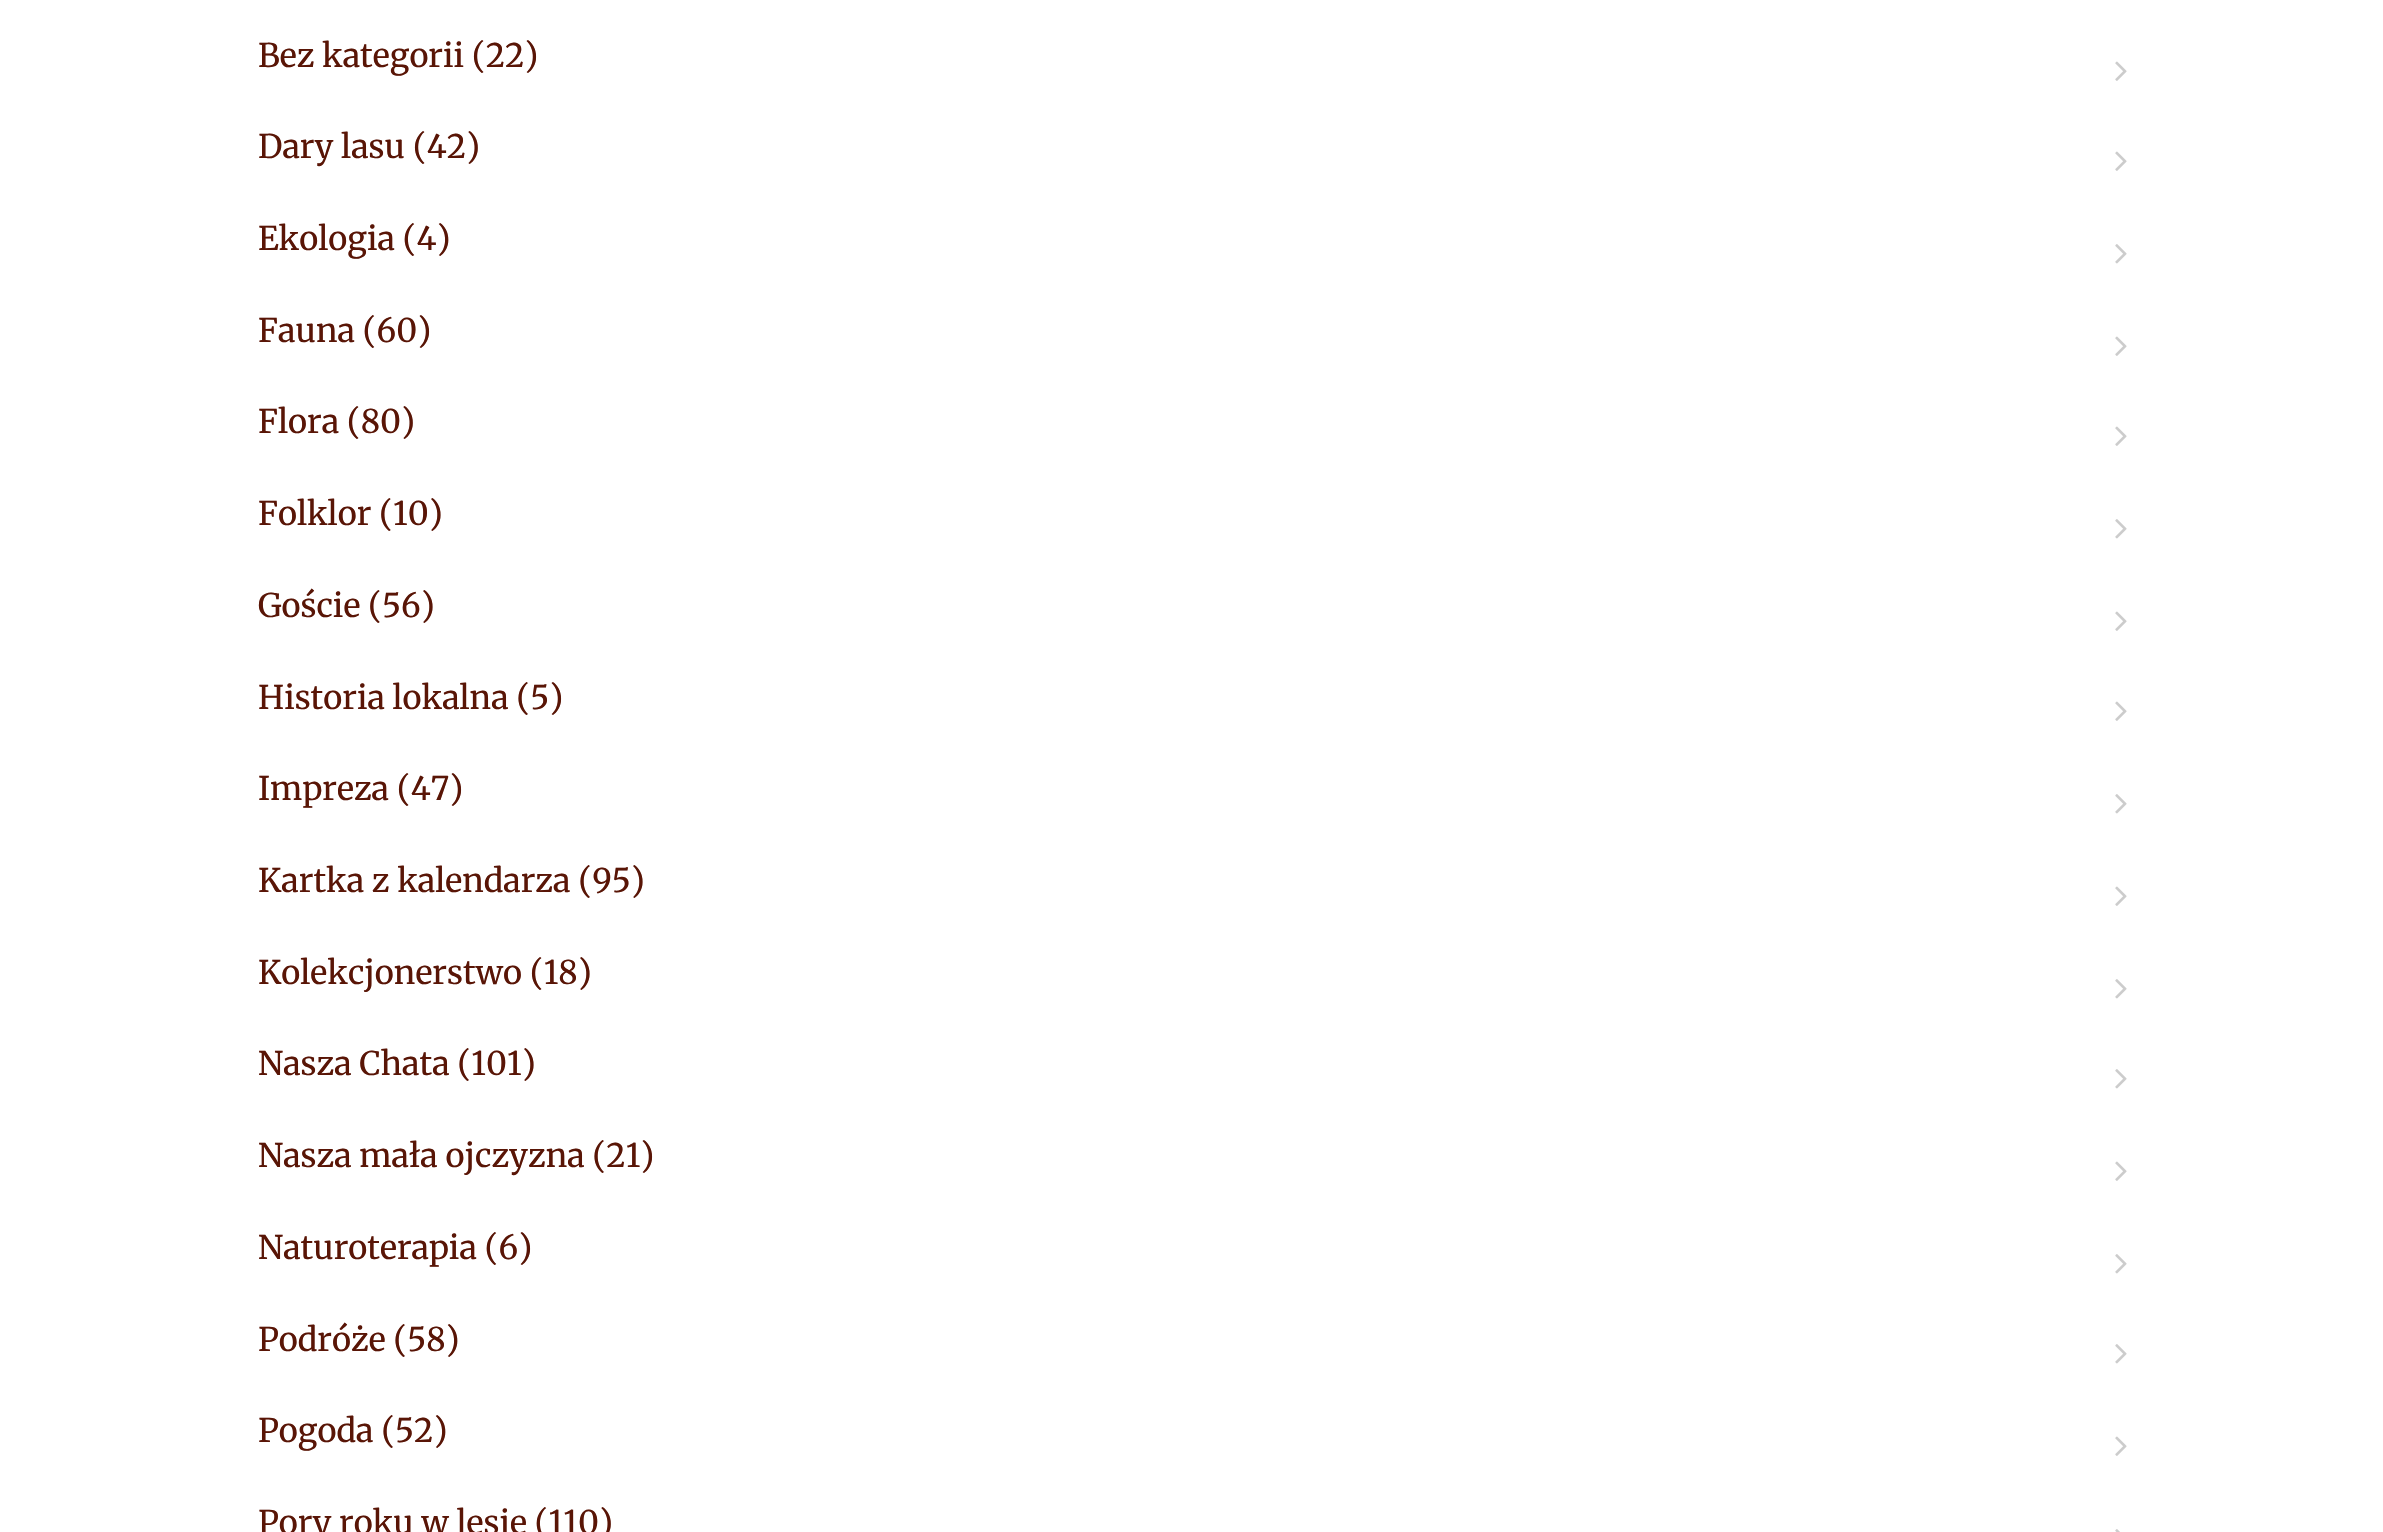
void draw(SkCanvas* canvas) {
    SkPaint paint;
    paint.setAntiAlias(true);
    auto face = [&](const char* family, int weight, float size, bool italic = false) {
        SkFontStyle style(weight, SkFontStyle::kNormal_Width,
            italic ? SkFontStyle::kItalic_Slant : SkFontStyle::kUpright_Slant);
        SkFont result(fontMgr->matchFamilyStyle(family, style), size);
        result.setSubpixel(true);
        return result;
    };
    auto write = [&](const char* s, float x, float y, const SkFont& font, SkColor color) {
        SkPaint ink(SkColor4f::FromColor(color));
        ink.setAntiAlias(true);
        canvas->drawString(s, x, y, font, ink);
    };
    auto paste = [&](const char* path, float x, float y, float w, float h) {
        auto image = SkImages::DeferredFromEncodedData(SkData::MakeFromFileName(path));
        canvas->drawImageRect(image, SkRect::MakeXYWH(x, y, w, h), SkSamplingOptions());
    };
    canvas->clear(SK_ColorWHITE);
    auto kFont1 = face("Merriweather", 400, 32.5f);
    write("Bez kategorii (22)", 258, 67, kFont1, SkColorSetRGB(89, 21, 6));
    paste("pic1.png", 2115, 61, 12, 20);
    write("Dary lasu (42)", 258, 158, kFont1, SkColorSetRGB(89, 21, 6));
    paste("pic1.png", 2115, 151, 12, 20);
    write("Ekologia (4)", 258, 250, kFont1, SkColorSetRGB(89, 21, 6));
    paste("pic2.png", 2115, 244, 12, 20);
    write("Fauna (60)", 258, 342, kFont1, SkColorSetRGB(89, 21, 6));
    paste("pic1.png", 2115, 336, 12, 20);
    write("Flora (80)", 258, 433, kFont1, SkColorSetRGB(89, 21, 6));
    paste("pic1.png", 2115, 426, 12, 20);
    write("Folklor (10)", 258, 525, kFont1, SkColorSetRGB(89, 21, 6));
    paste("pic2.png", 2115, 519, 12, 20);
    write("Goście (56)", 258, 617, kFont1, SkColorSetRGB(89, 21, 6));
    paste("pic1.png", 2115, 611, 12, 20);
    write("Historia lokalna (5)", 258, 709, kFont1, SkColorSetRGB(89, 21, 6));
    paste("pic1.png", 2115, 701, 12, 20);
    write("Impreza (47)", 258, 800, kFont1, SkColorSetRGB(89, 21, 6));
    paste("pic2.png", 2115, 794, 12, 20);
    write("Kartka z kalendarza (95)", 258, 892, kFont1, SkColorSetRGB(89, 21, 6));
    paste("pic1.png", 2115, 886, 12, 20);
    write("Kolekcjonerstwo (18)", 258, 984, kFont1, SkColorSetRGB(89, 21, 6));
    paste("pic2.png", 2115, 979, 12, 20);
    write("Nasza Chata (101)", 258, 1075, kFont1, SkColorSetRGB(89, 21, 6));
    paste("pic2.png", 2115, 1069, 12, 20);
    write("Nasza mała ojczyzna (21)", 258, 1167, kFont1, SkColorSetRGB(89, 21, 6));
    paste("pic1.png", 2115, 1161, 12, 20);
    write("Naturoterapia (6)", 258, 1259, kFont1, SkColorSetRGB(89, 21, 6));
    paste("pic2.png", 2115, 1254, 12, 20);
    write("Podróże (58)", 258, 1351, kFont1, SkColorSetRGB(89, 21, 6));
    paste("pic2.png", 2115, 1344, 12, 20);
    write("Pogoda (52)", 258, 1442, kFont1, SkColorSetRGB(89, 21, 6));
    paste("pic1.png", 2115, 1436, 12, 20);
    write("Pory roku w lesie (110)", 258, 1534, kFont1, SkColorSetRGB(89, 21, 6));
    paste("pic3.png", 2115, 1529, 5, 3);
}
